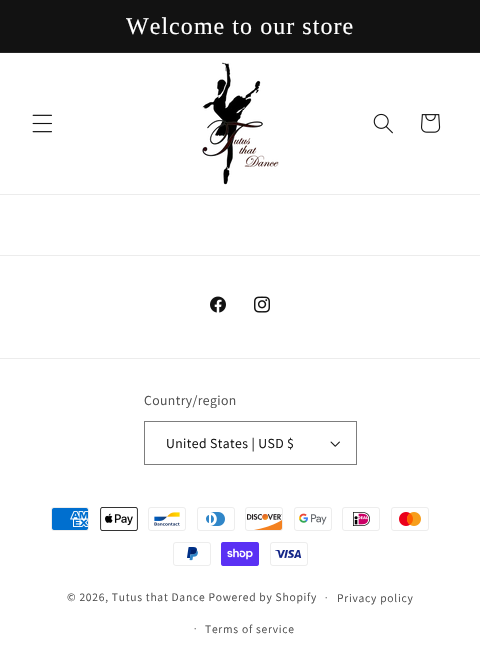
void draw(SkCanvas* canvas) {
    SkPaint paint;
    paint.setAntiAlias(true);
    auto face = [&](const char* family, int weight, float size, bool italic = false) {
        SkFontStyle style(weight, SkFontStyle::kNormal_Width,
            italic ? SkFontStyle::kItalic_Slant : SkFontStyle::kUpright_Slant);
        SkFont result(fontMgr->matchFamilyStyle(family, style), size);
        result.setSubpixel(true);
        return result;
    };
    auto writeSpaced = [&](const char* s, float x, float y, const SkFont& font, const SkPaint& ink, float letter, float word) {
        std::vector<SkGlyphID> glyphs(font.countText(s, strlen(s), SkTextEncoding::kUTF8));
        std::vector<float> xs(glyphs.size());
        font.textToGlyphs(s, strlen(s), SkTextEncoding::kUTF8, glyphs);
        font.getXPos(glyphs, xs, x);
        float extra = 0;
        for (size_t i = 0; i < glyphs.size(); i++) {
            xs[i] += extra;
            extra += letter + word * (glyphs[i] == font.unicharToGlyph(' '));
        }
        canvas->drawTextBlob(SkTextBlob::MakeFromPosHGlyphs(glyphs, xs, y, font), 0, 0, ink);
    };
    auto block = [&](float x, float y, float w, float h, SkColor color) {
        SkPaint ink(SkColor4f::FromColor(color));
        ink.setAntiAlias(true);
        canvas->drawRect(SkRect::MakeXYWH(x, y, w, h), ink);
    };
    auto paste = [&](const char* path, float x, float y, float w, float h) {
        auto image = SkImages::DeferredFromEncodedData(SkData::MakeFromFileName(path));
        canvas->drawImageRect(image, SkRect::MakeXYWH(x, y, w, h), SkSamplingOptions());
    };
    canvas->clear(SK_ColorWHITE);
    block(0, 0, 480, 52, SkColorSetRGB(18, 18, 18));
    block(0, 52, 480, 1, SkColorSetRGB(37, 37, 37));
    auto kFont1 = face("Liberation Serif", 400, 24);
    paint.setColor(SK_ColorWHITE);
    writeSpaced("Welcome to our store", 126, 34, kFont1, paint, 1.05f, 0);
    block(0, 194, 480, 1, SkColorSetRGB(236, 236, 236));
    paste("pic1.png", 32, 114, 20, 19);
    paste("pic2.png", 202, 62, 77, 123);
    paste("pic3.png", 373, 113, 20, 21);
    paste("pic4.png", 421, 114, 20, 19);
    block(0, 255, 480, 1, SkColorSetRGB(236, 236, 236));
    paste("pic5.png", 210, 296, 16, 17);
    paste("pic6.png", 254, 296, 16, 17);
    block(0, 358, 480, 1, SkColorSetRGB(236, 236, 236));
    auto kFont2 = face("Assistant", 400, 13.75f);
    paint.setColor(SkColorSetRGB(77, 77, 77));
    writeSpaced("Country/region", 144, 405, kFont2, paint, 0.4f, 0);
    paste("pic7.png", 330, 441, 10, 6);
    paint.setStyle(SkPaint::kStroke_Style);
    paint.setStrokeWidth(1);
    paint.setColor(SkColorSetRGB(125, 125, 125));
    canvas->drawRect(SkRect::MakeXYWH(144.5f, 421.5f, 212, 43), paint);
    paint.setStyle(SkPaint::kFill_Style);
    paint.setColor(SkColorSetRGB(18, 18, 18));
    writeSpaced("United States | USD $", 166, 448, kFont2, paint, 0.4f, 0);
    paste("pic8.png", 51, 507, 38, 24);
    paste("pic9.png", 100, 507, 38, 24);
    paste("pic10.png", 148, 507, 38, 24);
    paste("pic11.png", 197, 507, 38, 24);
    paste("pic12.png", 245, 507, 38, 24);
    paste("pic13.png", 294, 507, 38, 24);
    paste("pic14.png", 342, 507, 38, 24);
    paste("pic15.png", 391, 507, 38, 24);
    paste("pic16.png", 173, 542, 38, 24);
    paste("pic17.png", 221, 542, 38, 24);
    paste("pic18.png", 270, 542, 38, 24);
    auto kFont3 = face("Assistant", 400, 11.55f);
    paint.setColor(SkColorSetRGB(77, 77, 77));
    writeSpaced("© 2026, Tutus that Dance Powered by Shopify", 67, 601, kFont3, paint, 0.75f, 0);
    auto kFont4 = face("Assistant", 400, 10);
    writeSpaced("·", 325, 601, kFont4, paint, 0.75f, 0);
    writeSpaced("Privacy policy", 337, 602, kFont3, paint, 0.75f, 0);
    writeSpaced("·", 194, 632, kFont4, paint, 0.75f, 0);
    writeSpaced("Terms of service", 205, 633, kFont3, paint, 0.75f, 0);
}
